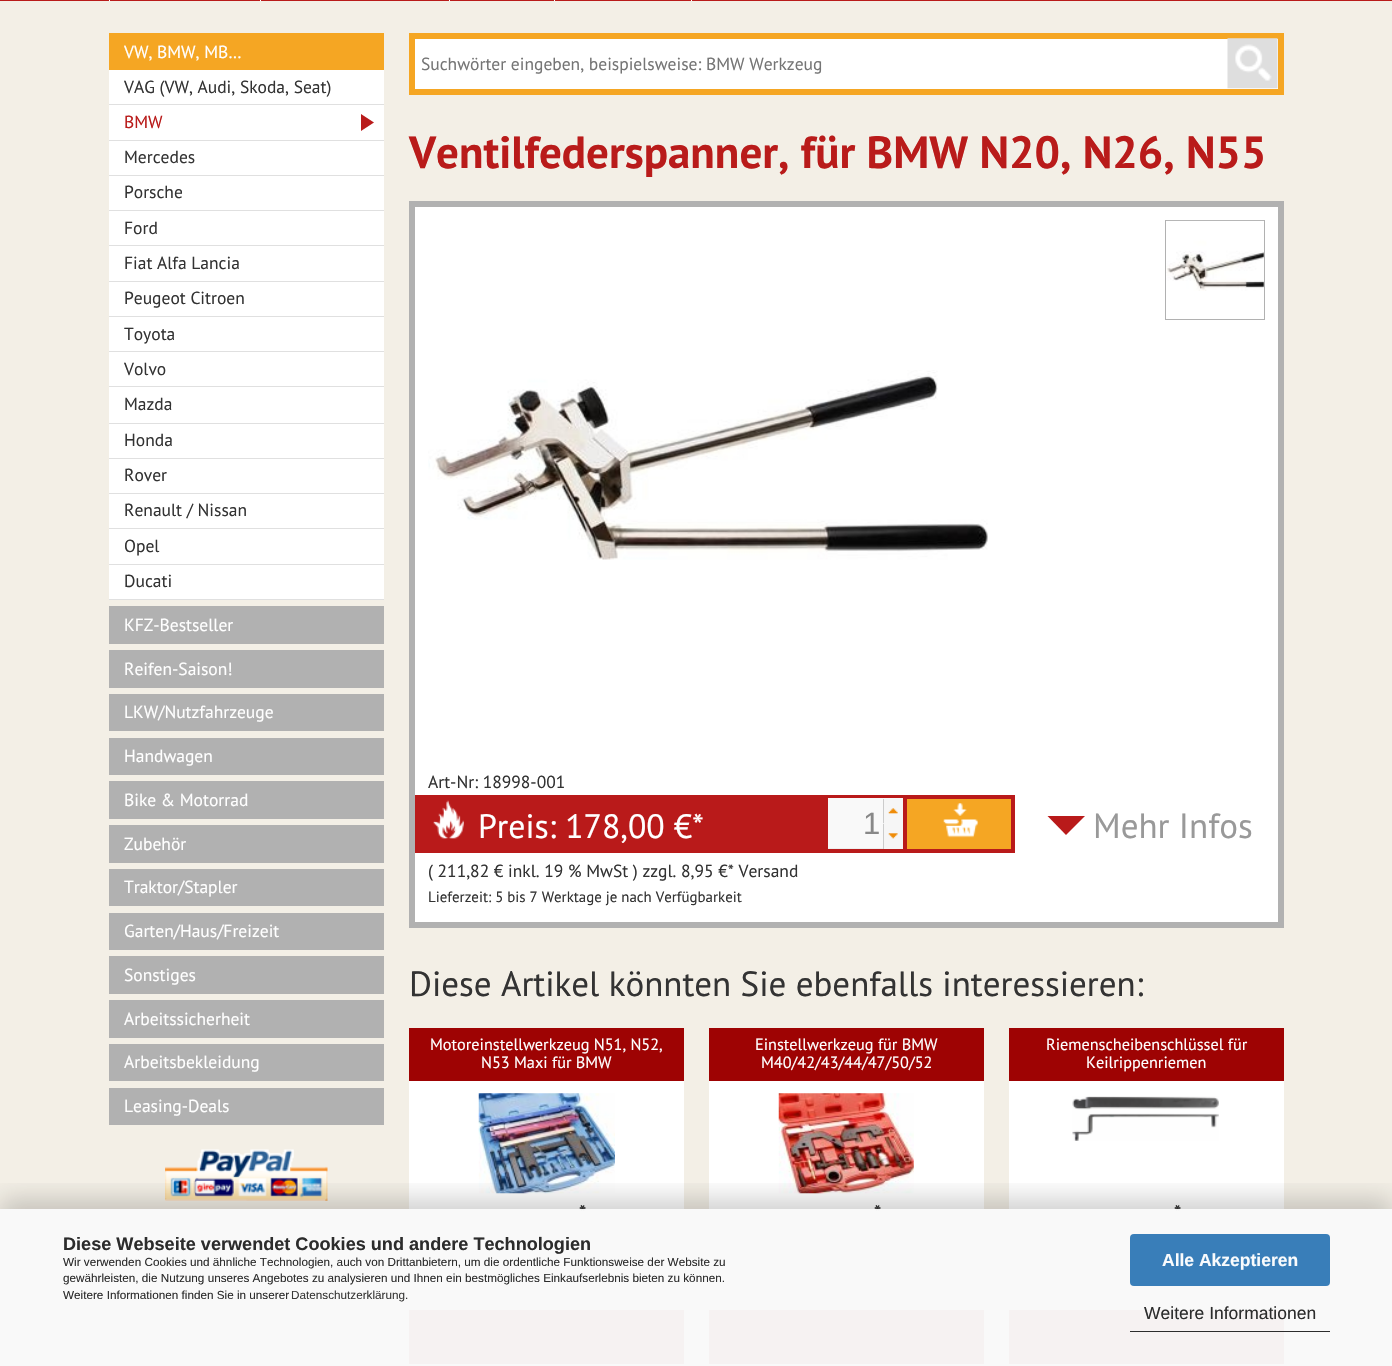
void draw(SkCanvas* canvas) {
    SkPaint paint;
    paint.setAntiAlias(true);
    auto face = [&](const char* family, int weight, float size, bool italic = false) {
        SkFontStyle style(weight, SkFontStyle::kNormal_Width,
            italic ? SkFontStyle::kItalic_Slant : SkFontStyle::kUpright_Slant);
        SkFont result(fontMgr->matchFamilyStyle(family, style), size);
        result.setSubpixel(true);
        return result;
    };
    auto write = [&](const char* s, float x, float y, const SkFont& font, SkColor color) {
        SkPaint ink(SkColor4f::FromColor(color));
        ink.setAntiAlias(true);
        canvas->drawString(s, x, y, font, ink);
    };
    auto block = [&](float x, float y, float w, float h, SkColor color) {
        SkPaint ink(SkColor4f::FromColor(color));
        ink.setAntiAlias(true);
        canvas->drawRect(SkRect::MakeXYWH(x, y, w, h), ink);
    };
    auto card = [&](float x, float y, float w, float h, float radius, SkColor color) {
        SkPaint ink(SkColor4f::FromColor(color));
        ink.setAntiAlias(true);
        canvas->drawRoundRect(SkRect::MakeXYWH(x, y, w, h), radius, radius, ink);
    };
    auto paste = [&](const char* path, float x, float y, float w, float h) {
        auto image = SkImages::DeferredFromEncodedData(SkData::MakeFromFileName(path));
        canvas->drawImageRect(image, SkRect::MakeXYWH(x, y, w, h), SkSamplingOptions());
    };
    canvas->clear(SkColorSetRGB(185, 27, 26));
    block(109, 0, 1, 1, SK_ColorWHITE);
    block(260, 0, 1, 1, SK_ColorWHITE);
    block(449, 0, 1, 1, SK_ColorWHITE);
    block(554, 0, 1, 1, SK_ColorWHITE);
    block(691, 0, 1, 1, SK_ColorWHITE);
    block(0, 1, 1392, 1365, SkColorSetRGB(243, 239, 230));
    block(109, 33, 275, 37, SkColorSetRGB(245, 166, 35));
    auto kFont1 = face("PT Sans", 400, 17.5f);
    write("VW, BMW, MB…", 124, 58, kFont1, SK_ColorWHITE);
    block(109, 70, 275, 529, SK_ColorWHITE);
    block(109, 104, 275, 1, SkColorSetRGB(224, 224, 224));
    write("VAG (VW, Audi, Skoda, Seat)", 124, 93, kFont1, SkColorSetRGB(51, 51, 51));
    block(109, 140, 275, 1, SkColorSetRGB(224, 224, 224));
    write("BMW", 124, 128, kFont1, SkColorSetRGB(185, 27, 26));
    paint.setColor(SkColorSetRGB(185, 26, 26));
    canvas->drawPath(SkPathBuilder().moveTo(361, 131).lineTo(361, 114).lineTo(374, 122.5f).close().detach(), paint);
    block(109, 175, 275, 1, SkColorSetRGB(224, 224, 224));
    write("Mercedes", 124, 163, kFont1, SkColorSetRGB(51, 51, 51));
    block(109, 210, 275, 1, SkColorSetRGB(224, 224, 224));
    write("Porsche", 124, 198, kFont1, SkColorSetRGB(51, 51, 51));
    block(109, 245, 275, 1, SkColorSetRGB(224, 224, 224));
    write("Ford", 124, 234, kFont1, SkColorSetRGB(51, 51, 51));
    block(109, 281, 275, 1, SkColorSetRGB(224, 224, 224));
    write("Fiat Alfa Lancia", 124, 269, kFont1, SkColorSetRGB(51, 51, 51));
    block(109, 316, 275, 1, SkColorSetRGB(224, 224, 224));
    write("Peugeot Citroen", 124, 304, kFont1, SkColorSetRGB(51, 51, 51));
    block(109, 351, 275, 1, SkColorSetRGB(224, 224, 224));
    write("Toyota", 124, 340, kFont1, SkColorSetRGB(51, 51, 51));
    block(109, 386, 275, 1, SkColorSetRGB(224, 224, 224));
    write("Volvo", 124, 375, kFont1, SkColorSetRGB(51, 51, 51));
    block(109, 423, 275, 1, SkColorSetRGB(224, 224, 224));
    write("Mazda", 124, 410, kFont1, SkColorSetRGB(51, 51, 51));
    block(109, 458, 275, 1, SkColorSetRGB(224, 224, 224));
    write("Honda", 124, 446, kFont1, SkColorSetRGB(51, 51, 51));
    block(109, 493, 275, 1, SkColorSetRGB(224, 224, 224));
    write("Rover", 124, 481, kFont1, SkColorSetRGB(51, 51, 51));
    block(109, 528, 275, 1, SkColorSetRGB(224, 224, 224));
    write("Renault / Nissan", 124, 516, kFont1, SkColorSetRGB(51, 51, 51));
    block(109, 564, 275, 1, SkColorSetRGB(224, 224, 224));
    write("Opel", 124, 552, kFont1, SkColorSetRGB(51, 51, 51));
    block(109, 599, 275, 1, SkColorSetRGB(224, 224, 224));
    write("Ducati", 124, 587, kFont1, SkColorSetRGB(51, 51, 51));
    block(109, 606, 275, 38, SkColorSetRGB(177, 177, 177));
    write("KFZ-Bestseller", 124, 631, kFont1, SK_ColorWHITE);
    block(109, 650, 275, 38, SkColorSetRGB(177, 177, 177));
    write("Reifen-Saison!", 124, 675, kFont1, SK_ColorWHITE);
    block(109, 694, 275, 37, SkColorSetRGB(177, 177, 177));
    write("LKW/Nutzfahrzeuge", 124, 718, kFont1, SK_ColorWHITE);
    block(109, 738, 275, 37, SkColorSetRGB(177, 177, 177));
    write("Handwagen", 124, 762, kFont1, SK_ColorWHITE);
    block(109, 781, 275, 38, SkColorSetRGB(177, 177, 177));
    write("Bike & Motorrad", 124, 806, kFont1, SK_ColorWHITE);
    block(109, 825, 275, 38, SkColorSetRGB(177, 177, 177));
    write("Zubehör", 124, 850, kFont1, SK_ColorWHITE);
    block(109, 869, 275, 37, SkColorSetRGB(177, 177, 177));
    write("Traktor/Stapler", 124, 893, kFont1, SK_ColorWHITE);
    block(109, 913, 275, 37, SkColorSetRGB(177, 177, 177));
    write("Garten/Haus/Freizeit", 124, 937, kFont1, SK_ColorWHITE);
    block(109, 956, 275, 38, SkColorSetRGB(177, 177, 177));
    write("Sonstiges", 124, 981, kFont1, SK_ColorWHITE);
    block(109, 1000, 275, 38, SkColorSetRGB(177, 177, 177));
    write("Arbeitssicherheit", 124, 1025, kFont1, SK_ColorWHITE);
    block(109, 1044, 275, 37, SkColorSetRGB(177, 177, 177));
    write("Arbeitsbekleidung", 124, 1068, kFont1, SK_ColorWHITE);
    block(109, 1088, 275, 37, SkColorSetRGB(177, 177, 177));
    write("Leasing-Deals", 124, 1112, kFont1, SK_ColorWHITE);
    paste("pic1.png", 165, 1149, 163, 52);
    block(409, 33, 875, 62, SkColorSetRGB(245, 166, 35));
    block(415, 39, 863, 50, SK_ColorWHITE);
    write("Suchwörter eingeben, beispielsweise: BMW Werkzeug", 421, 70, kFont1, SkColorSetRGB(117, 117, 117));
    paste("pic2.png", 1227, 38, 51, 51);
    auto kFont2 = face("PT Sans", 700, 45);
    write("Ventilfederspanner, für BMW N20, N26, N55", 409, 168, kFont2, SkColorSetRGB(185, 27, 26));
    paint.setColor(SK_ColorWHITE);
    canvas->drawRect(SkRect::MakeXYWH(412, 204, 869, 721), paint);
    paint.setStyle(SkPaint::kStroke_Style);
    paint.setStrokeWidth(6);
    paint.setColor(SkColorSetRGB(177, 177, 177));
    canvas->drawRect(SkRect::MakeXYWH(412, 204, 869, 721), paint);
    paint.setStrokeWidth(1);
    canvas->drawRect(SkRect::MakeXYWH(1165.5f, 220.5f, 99, 99), paint);
    paste("pic3.png", 1166, 220, 98, 71);
    paste("pic4.png", 428, 370, 560, 190);
    write("Art-Nr: 18998-001", 428, 788, kFont1, SkColorSetRGB(51, 51, 51));
    block(415, 795, 413, 58, SkColorSetRGB(185, 26, 26));
    paste("pic5.png", 433, 800, 31, 39);
    auto kFont3 = face("PT Sans", 400, 33.75f);
    write("Preis: 178,00 €*", 478, 838, kFont3, SK_ColorWHITE);
    write("( 211,82 € inkl. 19 % MwSt ) zzgl. 8,95 €* Versand", 428, 877, kFont1, SkColorSetRGB(51, 51, 51));
    auto kFont4 = face("PT Sans", 400, 14.9f);
    write("Lieferzeit: 5 bis 7 Werktage je nach Verfügbarkeit", 428, 902, kFont4, SkColorSetRGB(51, 51, 51));
    block(828, 795, 75, 3, SkColorSetRGB(185, 26, 26));
    block(828, 849, 75, 4, SkColorSetRGB(185, 26, 26));
    block(828, 848, 55, 1, SkColorSetRGB(238, 238, 238));
    block(828, 798, 75, 50, SkColorSetRGB(249, 249, 249));
    auto kFont5 = face("Liberation Sans", 400, 31);
    write("1", 863, 834, kFont5, SkColorSetRGB(136, 136, 136));
    block(884, 799, 19, 50, SkColorSetRGB(246, 246, 246));
    block(883, 799, 1, 50, SkColorSetRGB(204, 204, 204));
    paste("pic6.png", 888, 808, 10, 6);
    block(883, 823, 1, 1, SkColorSetRGB(239, 239, 239));
    paste("pic7.png", 888, 833, 10, 6);
    block(907, 799, 104, 50, SkColorSetRGB(245, 166, 35));
    paste("pic8.png", 943, 803, 36, 35);
    paint.setStrokeWidth(4);
    paint.setColor(SkColorSetRGB(185, 26, 26));
    canvas->drawRect(SkRect::MakeXYWH(905, 797, 108, 54), paint);
    paint.setStyle(SkPaint::kFill_Style);
    canvas->drawPath(SkPathBuilder().moveTo(1047.5f, 816).lineTo(1085, 816).lineTo(1066, 835).close().detach(), paint);
    auto kFont6 = face("PT Sans", 400, 35);
    write("Mehr Infos", 1093, 838, kFont6, SkColorSetRGB(153, 153, 153));
    write("Diese Artikel könnten Sie ebenfalls interessieren:", 409, 996, kFont6, SkColorSetRGB(51, 51, 51));
    block(409, 1081, 275, 204, SK_ColorWHITE);
    block(409, 1028, 275, 53, SkColorSetRGB(158, 3, 3));
    auto kFont7 = face("PT Sans", 400, 16.25f);
    write("Motoreinstellwerkzeug N51, N52,", 430, 1050, kFont7, SK_ColorWHITE);
    write("N53 Maxi für BMW", 481, 1068, kFont7, SK_ColorWHITE);
    paste("pic9.png", 478, 1093, 137, 101);
    auto kFont8 = face("PT Sans", 700, 19);
    write("*", 579, 1219, kFont8, SkColorSetRGB(51, 51, 51));
    block(709, 1081, 275, 204, SK_ColorWHITE);
    block(709, 1028, 275, 53, SkColorSetRGB(158, 3, 3));
    write("Einstellwerkzeug für BMW", 755, 1050, kFont7, SK_ColorWHITE);
    write("M40/42/43/44/47/50/52", 761, 1068, kFont7, SK_ColorWHITE);
    paste("pic10.png", 778, 1093, 136, 101);
    write("*", 874, 1219, kFont8, SkColorSetRGB(51, 51, 51));
    block(1009, 1081, 275, 204, SK_ColorWHITE);
    block(1009, 1028, 275, 53, SkColorSetRGB(158, 3, 3));
    write("Riemenscheibenschlüssel für", 1046, 1050, kFont7, SK_ColorWHITE);
    write("Keilrippenriemen", 1086, 1068, kFont7, SK_ColorWHITE);
    paste("pic11.png", 1072, 1096, 147, 45);
    write("*", 1174, 1219, kFont8, SkColorSetRGB(51, 51, 51));
    block(409, 1364, 275, 2, SK_ColorWHITE);
    block(409, 1310, 275, 54, SkColorSetRGB(158, 3, 3));
    block(709, 1364, 275, 2, SK_ColorWHITE);
    block(709, 1310, 275, 54, SkColorSetRGB(158, 3, 3));
    block(1009, 1364, 275, 2, SK_ColorWHITE);
    block(1009, 1310, 275, 54, SkColorSetRGB(158, 3, 3));
    canvas->save();
    canvas->clipRect(SkRect::MakeXYWH(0, 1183, 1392, 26));
    paint.setColor(SkColorSetARGB(48, 0, 0, 0));
    paint.setMaskFilter(SkMaskFilter::MakeBlur(kNormal_SkBlurStyle, 12.5f));
    canvas->drawRect(SkRect::MakeXYWH(0, 1199, 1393, 157), paint);
    paint.setMaskFilter(nullptr);
    canvas->restore();
    block(0, 1209, 1392, 157, SkColorSetARGB(247, 249, 249, 249));
    auto kFont9 = face("Liberation Sans", 700, 18.1f);
    write("Diese Webseite verwendet Cookies und andere Technologien", 63, 1250, kFont9, SkColorSetRGB(44, 44, 44));
    auto kFont10 = face("Liberation Sans", 400, 11.72f);
    write("Wir verwenden Cookies und ähnliche Technologien, auch von Drittanbietern, um die ordentliche Funktionsweise der Website zu", 63, 1266, kFont10, SkColorSetRGB(44, 44, 44));
    write("gewährleisten, die Nutzung unseres Angebotes zu analysieren und Ihnen ein bestmögliches Einkaufserlebnis bieten zu können.", 63, 1282, kFont10, SkColorSetRGB(44, 44, 44));
    write("Weitere Informationen finden Sie in unserer", 63, 1299, kFont10, SkColorSetRGB(44, 44, 44));
    write("Datenschutzerklärung", 291, 1299, kFont10, SkColorSetRGB(57, 57, 56));
    write(".", 405, 1299, kFont10, SkColorSetRGB(44, 44, 44));
    card(1130, 1234, 200, 52, 4, SkColorSetARGB(247, 51, 122, 183));
    auto kFont11 = face("Liberation Sans", 700, 17.5f);
    write("Alle Akzeptieren", 1162, 1266, kFont11, SkColorSetRGB(249, 251, 253));
    block(1130, 1331, 200, 1, SkColorSetARGB(247, 38, 38, 38));
    auto kFont12 = face("Liberation Sans", 400, 17.5f);
    write("Weitere Informationen", 1144, 1319, kFont12, SkColorSetRGB(44, 44, 44));
}
